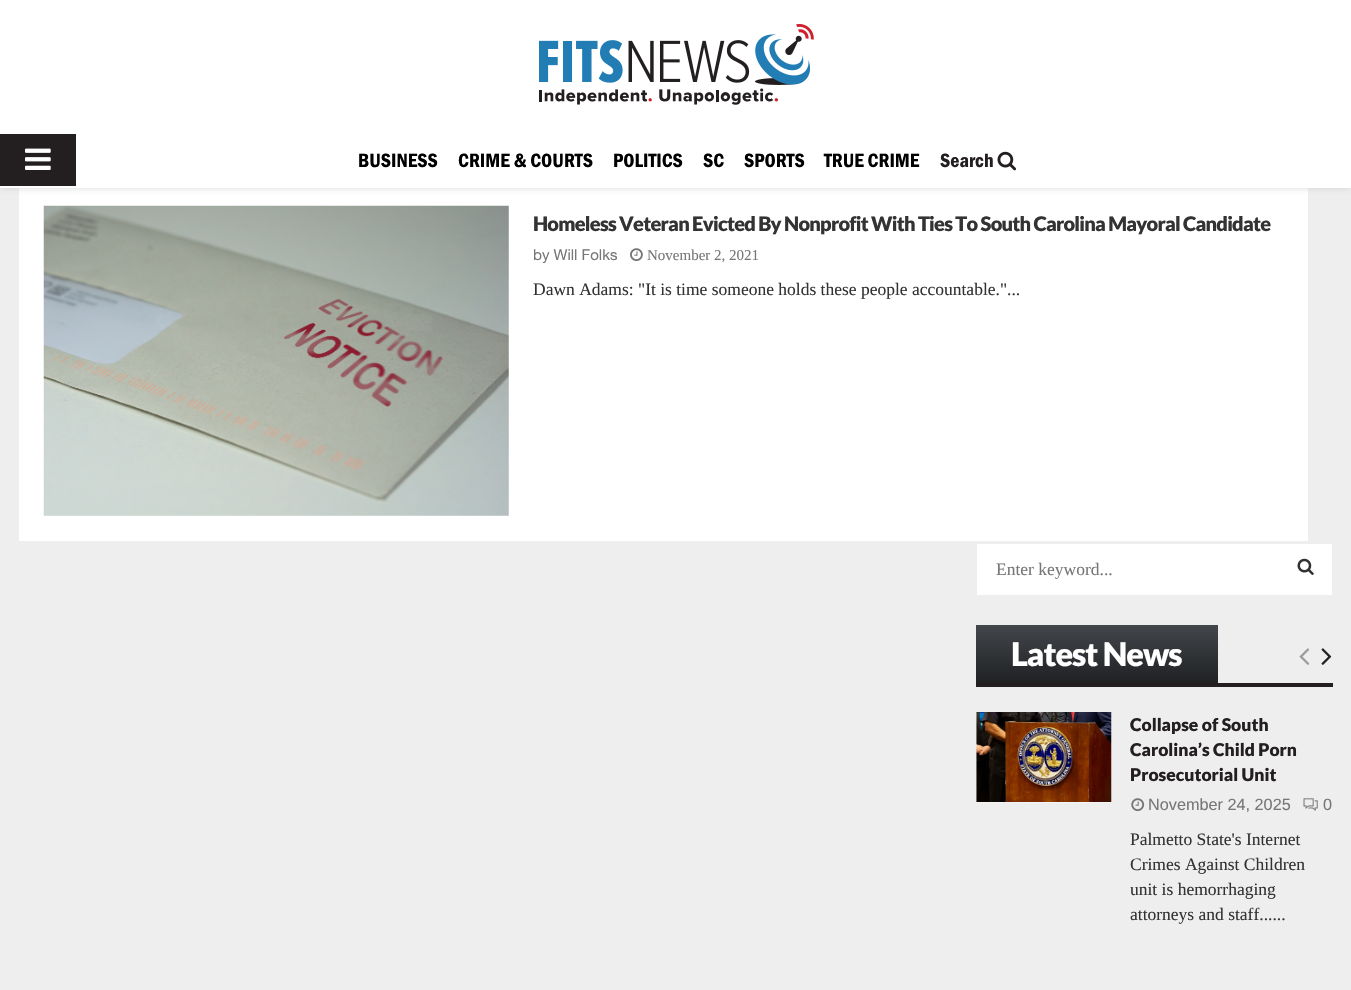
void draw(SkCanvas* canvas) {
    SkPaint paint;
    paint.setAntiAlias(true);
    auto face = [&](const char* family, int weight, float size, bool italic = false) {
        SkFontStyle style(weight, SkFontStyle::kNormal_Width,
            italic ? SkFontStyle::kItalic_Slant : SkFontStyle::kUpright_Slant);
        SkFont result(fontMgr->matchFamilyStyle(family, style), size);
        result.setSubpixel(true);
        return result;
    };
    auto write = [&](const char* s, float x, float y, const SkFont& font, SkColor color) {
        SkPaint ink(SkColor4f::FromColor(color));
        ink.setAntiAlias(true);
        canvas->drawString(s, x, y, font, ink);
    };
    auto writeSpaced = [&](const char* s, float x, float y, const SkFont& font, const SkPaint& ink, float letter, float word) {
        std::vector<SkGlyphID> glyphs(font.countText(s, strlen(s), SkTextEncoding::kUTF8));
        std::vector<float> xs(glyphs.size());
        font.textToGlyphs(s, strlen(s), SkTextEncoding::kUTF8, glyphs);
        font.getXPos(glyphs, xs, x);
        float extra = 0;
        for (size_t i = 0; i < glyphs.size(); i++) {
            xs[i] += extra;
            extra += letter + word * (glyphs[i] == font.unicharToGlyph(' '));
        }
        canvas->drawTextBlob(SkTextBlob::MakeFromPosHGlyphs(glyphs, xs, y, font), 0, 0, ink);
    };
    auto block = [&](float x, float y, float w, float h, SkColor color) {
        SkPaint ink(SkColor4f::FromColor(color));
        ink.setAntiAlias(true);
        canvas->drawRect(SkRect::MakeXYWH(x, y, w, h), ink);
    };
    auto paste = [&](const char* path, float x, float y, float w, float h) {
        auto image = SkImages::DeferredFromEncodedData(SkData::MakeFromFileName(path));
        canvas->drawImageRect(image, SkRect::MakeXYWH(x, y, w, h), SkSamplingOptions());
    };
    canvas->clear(SkColorSetRGB(238, 238, 238));
    block(19, 188, 1289, 353, SK_ColorWHITE);
    paint.setColor(SkColorSetARGB(117, 190, 190, 190));
    paint.setMaskFilter(SkMaskFilter::MakeBlur(kNormal_SkBlurStyle, 3));
    canvas->drawRect(SkRect::MakeXYWH(0, 1, 1351, 188), paint);
    paint.setMaskFilter(nullptr);
    block(0, 0, 1351, 188, SK_ColorWHITE);
    paste("pic1.png", 539, 24, 275, 81);
    block(0, 135, 75, 50, SkColorSetRGB(35, 31, 32));
    paste("pic2.png", 25, 148, 26, 22);
    paint.setStyle(SkPaint::kStroke_Style);
    paint.setStrokeWidth(1);
    paint.setColor(SkColorSetRGB(35, 31, 32));
    canvas->drawRect(SkRect::MakeXYWH(-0.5f, 134.5f, 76, 51), paint);
    auto kFont1 = face("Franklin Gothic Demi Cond", 400, 20);
    write("BUSINESS", 358, 167, kFont1, SK_ColorBLACK);
    write("CRIME & COURTS", 458, 167, kFont1, SK_ColorBLACK);
    write("POLITICS", 613, 167, kFont1, SK_ColorBLACK);
    write("SC", 703, 167, kFont1, SK_ColorBLACK);
    write("SPORTS", 744, 167, kFont1, SK_ColorBLACK);
    write("TRUE CRIME", 824, 167, kFont1, SK_ColorBLACK);
    write("Search", 940, 167, kFont1, SkColorSetRGB(35, 31, 32));
    paste("pic3.png", 997, 151, 19, 20);
    block(44, 206, 465, 310, SkColorSetRGB(245, 245, 245));
    paste("pic4.png", 43, 205, 466, 311);
    auto kFont2 = face("Lato", 900, 20);
    paint.setStyle(SkPaint::kFill_Style);
    paint.setColor(SkColorSetRGB(51, 51, 51));
    writeSpaced("Homeless Veteran Evicted By Nonprofit With Ties To South Carolina Mayoral Candidate", 533, 231, kFont2, paint, -0.75f, 0);
    auto kFont3 = face("Helvetica Neue", 400, 15);
    write("by Will Folks", 533, 260, kFont3, SkColorSetRGB(118, 118, 118));
    paste("pic5.png", 630, 248, 13, 14);
    auto kFont4 = face("Liberation Serif", 400, 15);
    write("November 2, 2021", 647, 260, kFont4, SkColorSetRGB(118, 118, 118));
    auto kFont5 = face("Liberation Serif", 400, 17.5f);
    write("Dawn Adams: \"It is time someone holds these people accountable.\"...", 533, 295, kFont5, SkColorSetRGB(51, 51, 51));
    block(977, 544, 355, 51, SK_ColorWHITE);
    write("Enter keyword...", 996, 575, kFont5, SkColorSetRGB(118, 118, 118));
    paste("pic6.png", 1297, 558, 17, 17);
    {
        const SkColor colors[] = {SkColorSetRGB(67, 70, 75), SkColorSetRGB(31, 33, 35)};
        const float stops[] = {0, 1};
        const SkPoint ends[] = {{1097, 625}, {1097, 683}};
        paint.setShader(SkGradientShader::MakeLinear(ends, colors, stops, 2, SkTileMode::kClamp));
        paint.setAlpha(255);
    }
    canvas->drawRect(SkRect::MakeXYWH(976, 625, 242, 58), paint);
    auto kFont6 = face("Lato", 900, 32.5f);
    paint.setShader(nullptr);
    paint.setColor(SK_ColorWHITE);
    writeSpaced("Latest News", 1011, 666, kFont6, paint, -1, 0);
    block(976, 683, 357, 4, SkColorSetRGB(35, 31, 32));
    paste("pic7.png", 1299, 648, 11, 17);
    paste("pic8.png", 1321, 648, 11, 17);
    block(976, 713, 135, 90, SkColorSetRGB(245, 245, 245));
    paste("pic9.png", 976, 712, 136, 90);
    auto kFont7 = face("Lato", 900, 17.5f);
    write("Collapse of South", 1130, 731, kFont7, SkColorSetRGB(35, 31, 32));
    write("Carolina’s Child Porn", 1130, 756, kFont7, SkColorSetRGB(35, 31, 32));
    write("Prosecutorial Unit", 1130, 781, kFont7, SkColorSetRGB(35, 31, 32));
    paste("pic10.png", 1131, 798, 14, 14);
    auto kFont8 = face("Liberation Sans", 400, 16.25f);
    write("November 24, 2025", 1148, 810, kFont8, SkColorSetRGB(118, 118, 118));
    paste("pic11.png", 1303, 798, 15, 13);
    write("0", 1323, 810, kFont8, SkColorSetRGB(118, 118, 118));
    write("Palmetto State's Internet", 1130, 845, kFont5, SkColorSetRGB(51, 51, 51));
    write("Crimes Against Children", 1130, 870, kFont5, SkColorSetRGB(51, 51, 51));
    write("unit is hemorrhaging", 1130, 895, kFont5, SkColorSetRGB(51, 51, 51));
    write("attorneys and staff......", 1130, 920, kFont5, SkColorSetRGB(51, 51, 51));
}
